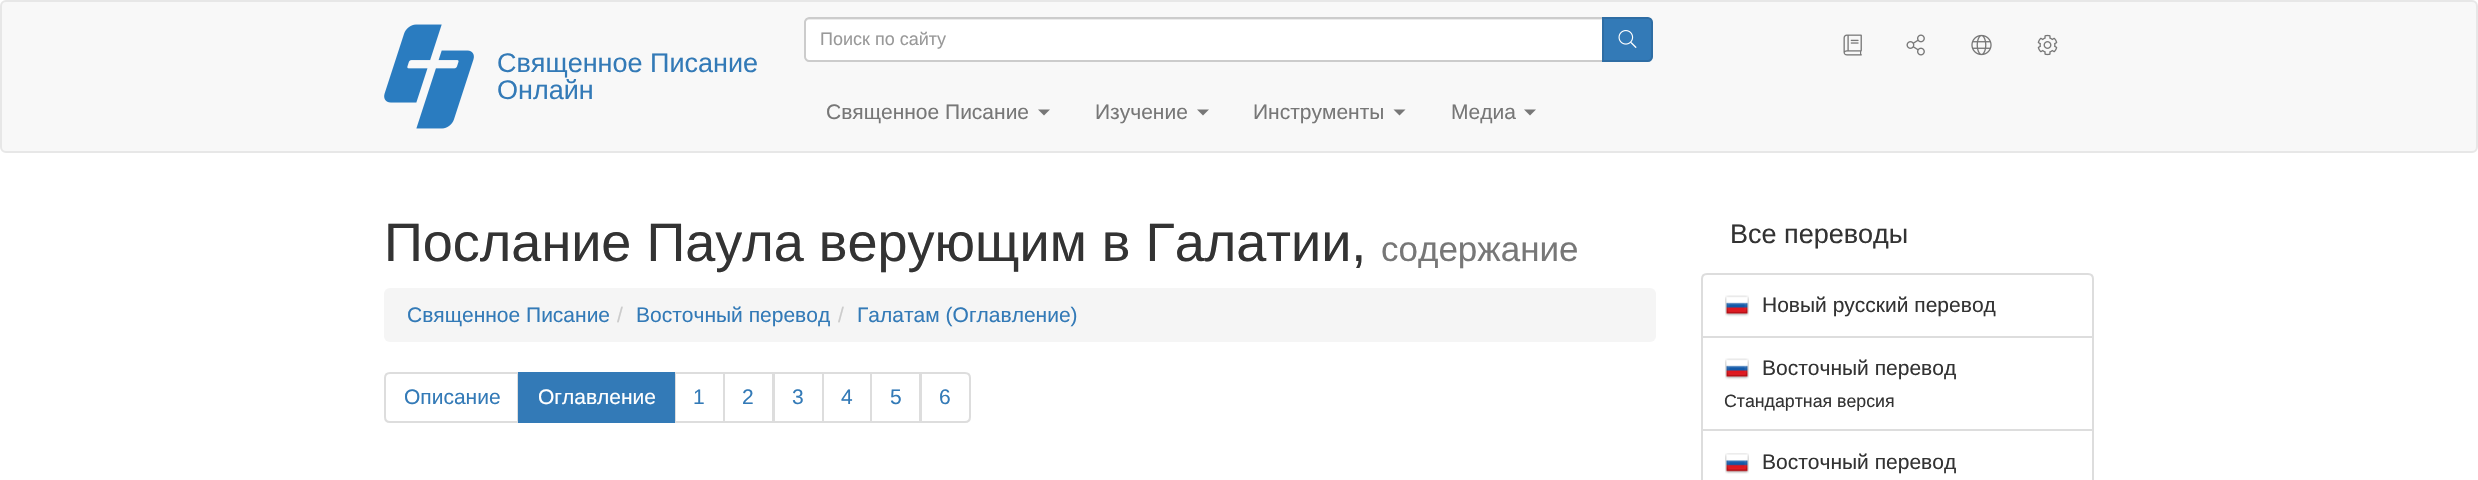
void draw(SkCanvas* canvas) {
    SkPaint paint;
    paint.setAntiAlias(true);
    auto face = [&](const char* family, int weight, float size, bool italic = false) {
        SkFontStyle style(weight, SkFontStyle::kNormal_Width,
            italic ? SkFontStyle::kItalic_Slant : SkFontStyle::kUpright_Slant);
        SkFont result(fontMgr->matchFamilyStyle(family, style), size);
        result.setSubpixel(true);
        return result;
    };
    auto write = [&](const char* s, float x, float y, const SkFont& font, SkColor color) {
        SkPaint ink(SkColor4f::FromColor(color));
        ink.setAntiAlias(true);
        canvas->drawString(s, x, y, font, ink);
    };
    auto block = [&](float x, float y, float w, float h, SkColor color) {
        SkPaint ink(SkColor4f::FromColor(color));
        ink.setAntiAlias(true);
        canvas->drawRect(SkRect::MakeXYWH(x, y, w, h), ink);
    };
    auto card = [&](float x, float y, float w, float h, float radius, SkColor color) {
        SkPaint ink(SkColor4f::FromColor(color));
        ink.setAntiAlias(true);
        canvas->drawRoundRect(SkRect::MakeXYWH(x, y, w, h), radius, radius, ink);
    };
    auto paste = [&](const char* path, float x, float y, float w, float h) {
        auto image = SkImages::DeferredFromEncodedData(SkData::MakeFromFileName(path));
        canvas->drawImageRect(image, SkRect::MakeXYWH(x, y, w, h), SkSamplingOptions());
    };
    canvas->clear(SK_ColorWHITE);
    paint.setColor(SkColorSetRGB(248, 248, 248));
    canvas->drawRoundRect(SkRect::MakeXYWH(1, 1, 2476, 151), 5, 5, paint);
    paint.setStyle(SkPaint::kStroke_Style);
    paint.setStrokeWidth(2);
    paint.setColor(SkColorSetRGB(231, 231, 231));
    canvas->drawRoundRect(SkRect::MakeXYWH(1, 1, 2476, 151), 5, 5, paint);
    paste("pic1.png", 384, 24, 90, 105);
    auto kFont1 = face("Liberation Sans", 400, 27);
    write("Священное Писание", 497, 72, kFont1, SkColorSetRGB(51, 122, 183));
    write("Онлайн", 497, 99, kFont1, SkColorSetRGB(51, 122, 183));
    paint.setStyle(SkPaint::kFill_Style);
    paint.setColor(SK_ColorWHITE);
    canvas->drawPath(SkPathBuilder().moveTo(809, 17).lineTo(1604, 17).lineTo(1604, 62).lineTo(809, 62).cubicTo(806, 62, 804, 60, 804, 57).lineTo(804, 22).cubicTo(804, 19, 806, 17, 809, 17).close().detach(), paint);
    paint.setColor(SkColorSetRGB(236, 236, 236));
    canvas->drawPath(SkPathBuilder().moveTo(808, 20).lineTo(1602, 20).lineTo(1602, 18).lineTo(809, 18).cubicTo(807, 18, 806, 20, 806, 22).cubicTo(806, 21, 807, 20, 808, 20).close().detach(), paint);
    paint.setStyle(SkPaint::kStroke_Style);
    paint.setColor(SkColorSetRGB(204, 204, 204));
    canvas->drawPath(SkPathBuilder().moveTo(809, 18).lineTo(1603, 18).lineTo(1603, 61).lineTo(809, 61).cubicTo(807, 61, 805, 59, 805, 57).lineTo(805, 22).cubicTo(805, 20, 807, 18, 809, 18).close().detach(), paint);
    auto kFont2 = face("Liberation Sans", 400, 18);
    write("Поиск по сайту", 820, 45, kFont2, SkColorSetRGB(153, 153, 153));
    paint.setStyle(SkPaint::kFill_Style);
    paint.setColor(SkColorSetRGB(51, 122, 183));
    canvas->drawPath(SkPathBuilder().moveTo(1603, 18).lineTo(1648, 18).cubicTo(1650, 18, 1652, 20, 1652, 22).lineTo(1652, 57).cubicTo(1652, 59, 1650, 61, 1648, 61).lineTo(1603, 61).close().detach(), paint);
    paint.setStyle(SkPaint::kStroke_Style);
    paint.setColor(SkColorSetRGB(46, 109, 164));
    canvas->drawPath(SkPathBuilder().moveTo(1603, 18).lineTo(1648, 18).cubicTo(1650, 18, 1652, 20, 1652, 22).lineTo(1652, 57).cubicTo(1652, 59, 1650, 61, 1648, 61).lineTo(1603, 61).close().detach(), paint);
    paste("pic2.png", 1618, 30, 19, 18);
    paste("pic3.png", 1843, 34, 19, 22);
    paste("pic4.png", 1906, 34, 19, 22);
    paste("pic5.png", 1971, 34, 21, 22);
    paste("pic6.png", 2037, 34, 21, 22);
    auto kFont3 = face("Liberation Sans", 400, 21);
    write("Священное Писание", 826, 119, kFont3, SkColorSetRGB(119, 119, 119));
    paint.setStyle(SkPaint::kFill_Style);
    paint.setColor(SkColorSetRGB(119, 119, 119));
    canvas->drawPath(SkPathBuilder().moveTo(1038, 109.5f).lineTo(1050, 109.5f).lineTo(1044, 115.5f).close().detach(), paint);
    write("Изучение", 1095, 119, kFont3, SkColorSetRGB(119, 119, 119));
    canvas->drawPath(SkPathBuilder().moveTo(1197, 109.5f).lineTo(1209, 109.5f).lineTo(1203, 115.5f).close().detach(), paint);
    write("Инструменты", 1253, 119, kFont3, SkColorSetRGB(119, 119, 119));
    canvas->drawPath(SkPathBuilder().moveTo(1393.5f, 109.5f).lineTo(1405.5f, 109.5f).lineTo(1399.5f, 115.5f).close().detach(), paint);
    write("Медиа", 1451, 119, kFont3, SkColorSetRGB(119, 119, 119));
    canvas->drawPath(SkPathBuilder().moveTo(1524, 109.5f).lineTo(1536, 109.5f).lineTo(1530, 115.5f).close().detach(), paint);
    auto kFont4 = face("Liberation Sans", 400, 54);
    write("Послание Паула верующим в Галатии,", 384, 261, kFont4, SkColorSetRGB(51, 51, 51));
    auto kFont5 = face("Liberation Sans", 400, 35);
    write("содержание", 1381, 261, kFont5, SkColorSetRGB(119, 119, 119));
    card(384, 288, 1272, 54, 6, SkColorSetRGB(245, 245, 245));
    write("Священное Писание", 407, 322, kFont3, SkColorSetRGB(51, 122, 183));
    write("/", 617, 322, kFont3, SkColorSetRGB(204, 204, 204));
    write("Восточный перевод", 636, 322, kFont3, SkColorSetRGB(51, 122, 183));
    write("/", 838, 322, kFont3, SkColorSetRGB(204, 204, 204));
    write("Галатам (Оглавление)", 857, 322, kFont3, SkColorSetRGB(51, 122, 183));
    paint.setStyle(SkPaint::kStroke_Style);
    paint.setColor(SkColorSetRGB(221, 221, 221));
    canvas->drawPath(SkPathBuilder().moveTo(390, 373).lineTo(518, 373).lineTo(518, 422).lineTo(390, 422).cubicTo(387, 422, 385, 420, 385, 417).lineTo(385, 378).cubicTo(385, 375, 387, 373, 390, 373).close().detach(), paint);
    write("Описание", 404, 404, kFont3, SkColorSetRGB(51, 122, 183));
    canvas->drawRect(SkRect::MakeXYWH(675, 373, 49, 49), paint);
    block(518, 372, 157, 51, SkColorSetRGB(51, 122, 183));
    write("Оглавление", 538, 404, kFont3, SK_ColorWHITE);
    write("1", 693, 404, kFont3, SkColorSetRGB(51, 122, 183));
    canvas->drawRect(SkRect::MakeXYWH(724, 373, 49, 49), paint);
    write("2", 742, 404, kFont3, SkColorSetRGB(51, 122, 183));
    canvas->drawRect(SkRect::MakeXYWH(774, 373, 49, 49), paint);
    write("3", 792, 404, kFont3, SkColorSetRGB(51, 122, 183));
    canvas->drawRect(SkRect::MakeXYWH(823, 373, 48, 49), paint);
    write("4", 841, 404, kFont3, SkColorSetRGB(51, 122, 183));
    canvas->drawRect(SkRect::MakeXYWH(871, 373, 49, 49), paint);
    write("5", 890, 404, kFont3, SkColorSetRGB(51, 122, 183));
    paint.setStyle(SkPaint::kFill_Style);
    paint.setColor(SK_ColorWHITE);
    canvas->drawPath(SkPathBuilder().moveTo(921, 373).lineTo(965, 373).cubicTo(968, 373, 970, 375, 970, 378).lineTo(970, 417).cubicTo(970, 420, 968, 422, 965, 422).lineTo(921, 422).close().detach(), paint);
    paint.setStyle(SkPaint::kStroke_Style);
    paint.setColor(SkColorSetRGB(221, 221, 221));
    canvas->drawPath(SkPathBuilder().moveTo(921, 373).lineTo(965, 373).cubicTo(968, 373, 970, 375, 970, 378).lineTo(970, 417).cubicTo(970, 420, 968, 422, 965, 422).lineTo(921, 422).close().detach(), paint);
    write("6", 939, 404, kFont3, SkColorSetRGB(51, 122, 183));
    write("Все переводы", 1730, 243, kFont1, SkColorSetRGB(51, 51, 51));
    canvas->drawPath(SkPathBuilder().moveTo(1707, 274).lineTo(2088, 274).cubicTo(2091, 274, 2093, 276, 2093, 279).lineTo(2093, 337).lineTo(1702, 337).lineTo(1702, 279).cubicTo(1702, 276, 1704, 274, 1707, 274).close().detach(), paint);
    paste("pic7.png", 1725, 295, 24, 22);
    write("Новый русский перевод", 1762, 312, kFont3, SkColorSetRGB(51, 51, 51));
    canvas->drawRect(SkRect::MakeXYWH(1702, 337, 391, 93), paint);
    paste("pic7.png", 1725, 358, 24, 22);
    write("Восточный перевод", 1762, 375, kFont3, SkColorSetRGB(51, 51, 51));
    auto kFont6 = face("Liberation Sans", 400, 17.75f);
    write("Стандартная версия", 1724, 407, kFont6, SkColorSetRGB(51, 51, 51));
    canvas->drawRect(SkRect::MakeXYWH(1702, 430, 391, 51), paint);
    paste("pic8.png", 1725, 453, 24, 21);
    write("Восточный перевод", 1762, 469, kFont3, SkColorSetRGB(51, 51, 51));
}
